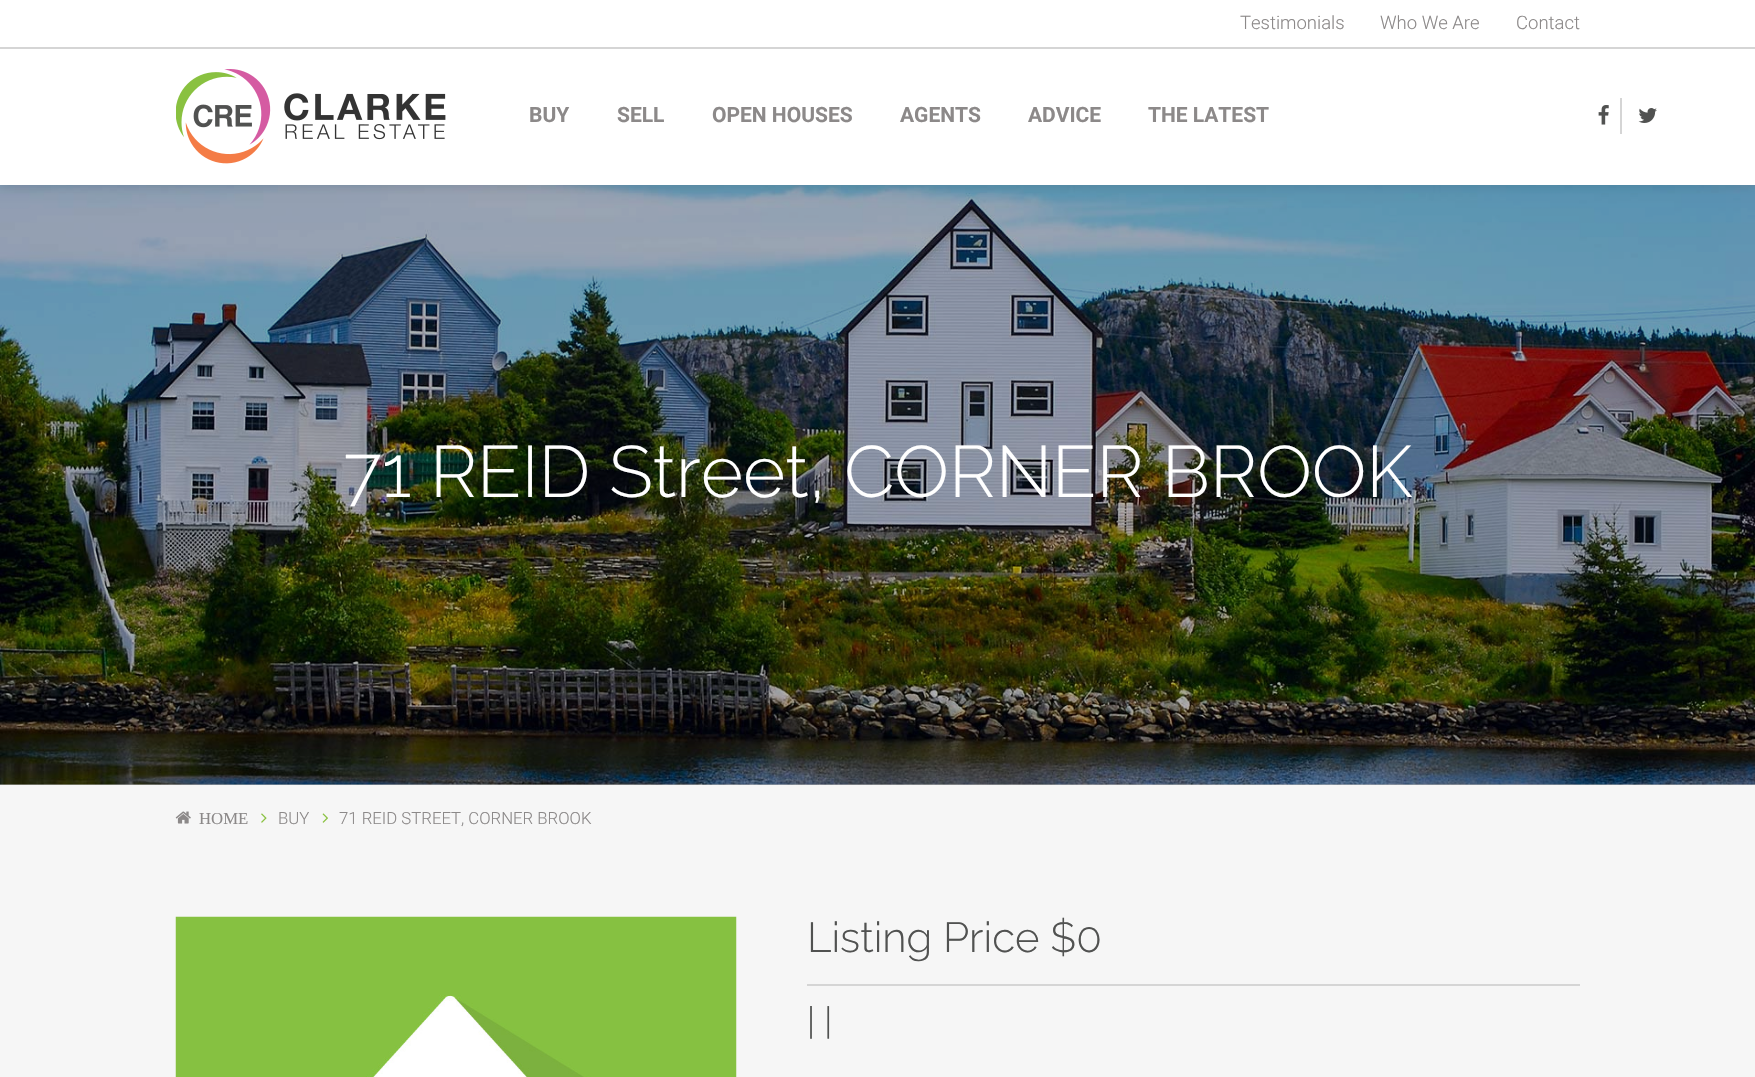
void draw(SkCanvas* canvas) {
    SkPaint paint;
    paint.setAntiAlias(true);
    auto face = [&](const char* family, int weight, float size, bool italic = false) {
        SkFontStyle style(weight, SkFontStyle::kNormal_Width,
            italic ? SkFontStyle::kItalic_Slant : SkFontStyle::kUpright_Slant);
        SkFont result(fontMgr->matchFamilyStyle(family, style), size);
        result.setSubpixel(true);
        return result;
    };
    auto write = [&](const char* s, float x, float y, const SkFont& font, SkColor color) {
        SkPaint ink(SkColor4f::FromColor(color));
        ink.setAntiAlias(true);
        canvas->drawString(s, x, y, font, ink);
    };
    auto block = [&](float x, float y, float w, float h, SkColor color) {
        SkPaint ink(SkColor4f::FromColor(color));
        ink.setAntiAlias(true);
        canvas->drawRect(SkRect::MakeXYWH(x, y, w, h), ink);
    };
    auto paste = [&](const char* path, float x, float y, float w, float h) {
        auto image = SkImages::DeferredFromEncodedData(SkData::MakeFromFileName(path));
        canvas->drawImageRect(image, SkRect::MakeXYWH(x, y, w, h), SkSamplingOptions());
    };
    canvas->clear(SkColorSetRGB(179, 179, 179));
    paste("pic4.png", 0, 185, 1755, 600);
    paint.setColor(SkColorSetARGB(26, 0, 0, 0));
    paint.setMaskFilter(SkMaskFilter::MakeBlur(kNormal_SkBlurStyle, 5));
    canvas->drawRect(SkRect::MakeXYWH(0, 3, 1755, 185), paint);
    paint.setMaskFilter(nullptr);
    block(0, 0, 1755, 185, SK_ColorWHITE);
    block(0, 47, 1755, 2, SkColorSetRGB(213, 213, 213));
    auto kFont1 = face("Roboto", 300, 18.5f);
    write("Testimonials", 1240, 29, kFont1, SkColorSetRGB(140, 137, 137));
    write("Who We Are", 1380, 29, kFont1, SkColorSetRGB(140, 137, 137));
    write("Contact", 1516, 29, kFont1, SkColorSetRGB(140, 137, 137));
    paste("pic1.png", 176, 69, 270, 95);
    auto kFont2 = face("Roboto", 700, 21);
    write("BUY", 529, 122, kFont2, SkColorSetRGB(140, 137, 137));
    write("SELL", 617, 122, kFont2, SkColorSetRGB(140, 137, 137));
    write("OPEN HOUSES", 712, 122, kFont2, SkColorSetRGB(140, 137, 137));
    write("AGENTS", 900, 122, kFont2, SkColorSetRGB(140, 137, 137));
    write("ADVICE", 1028, 122, kFont2, SkColorSetRGB(140, 137, 137));
    write("THE LATEST", 1148, 122, kFont2, SkColorSetRGB(140, 137, 137));
    block(1620, 98, 2, 36, SkColorSetRGB(213, 213, 213));
    paste("pic2.png", 1598, 105, 11, 20);
    paste("pic3.png", 1638, 108, 19, 15);
    auto kFont3 = face("Raleway", 100, 72.5f);
    write("71 REID Street, CORNER BROOK", 343, 497, kFont3, SK_ColorWHITE);
    block(0, 785, 1755, 292, SkColorSetRGB(246, 246, 246));
    paste("pic5.png", 175, 811, 16, 13);
    auto kFont4 = face("Liberation Serif", 400, 16.75f);
    write("HOME", 199, 824, kFont4, SkColorSetRGB(140, 137, 137));
    paste("pic6.png", 261, 813, 6, 10);
    auto kFont5 = face("Roboto", 300, 16.75f);
    write("BUY", 278, 824, kFont5, SkColorSetRGB(140, 137, 137));
    paste("pic7.png", 322, 813, 6, 10);
    write("71 REID STREET, CORNER BROOK", 339, 824, kFont5, SkColorSetRGB(140, 137, 137));
    paste("pic8.png", 175, 916, 562, 161);
    auto kFont6 = face("Raleway", 100, 42);
    write("Listing Price $0", 807, 952, kFont6, SkColorSetRGB(81, 82, 81));
    block(807, 984, 773, 2, SkColorSetRGB(213, 213, 213));
    auto kFont7 = face("Raleway", 100, 36);
    write("| |", 807, 1034, kFont7, SkColorSetRGB(81, 82, 81));
}
